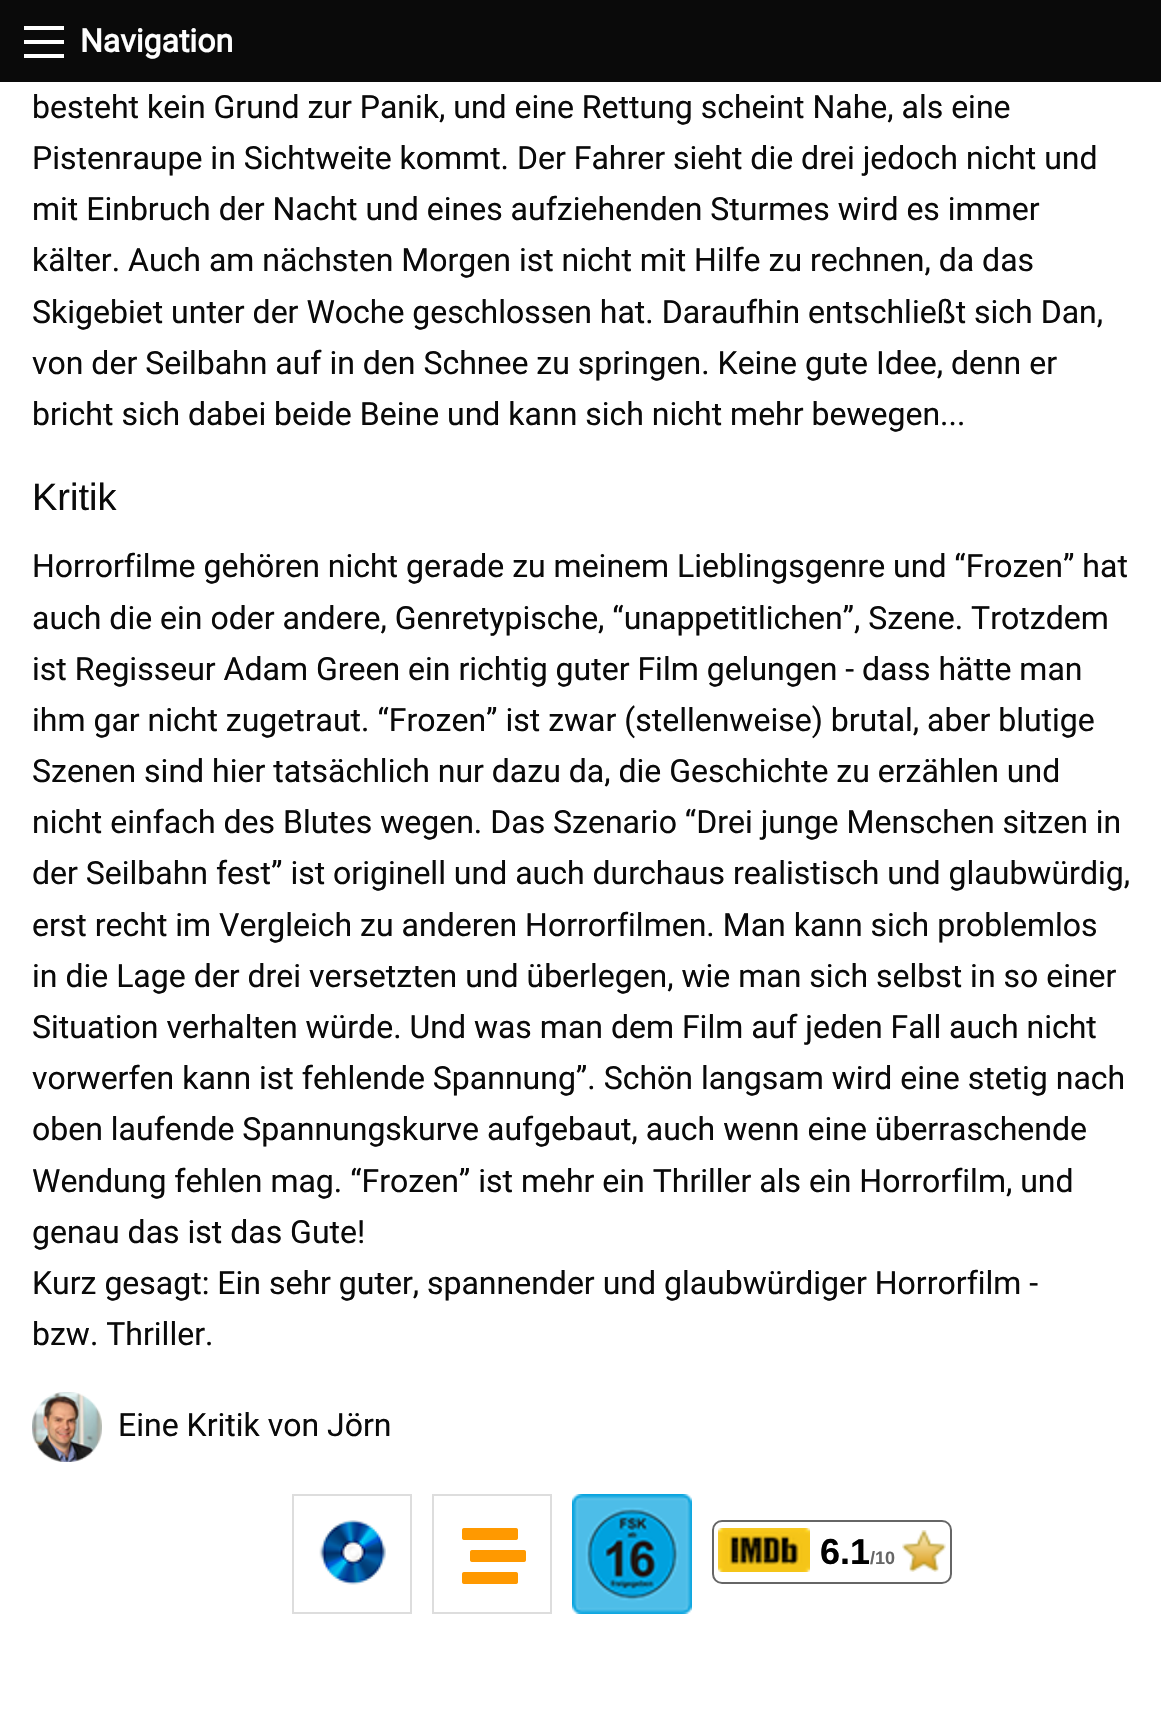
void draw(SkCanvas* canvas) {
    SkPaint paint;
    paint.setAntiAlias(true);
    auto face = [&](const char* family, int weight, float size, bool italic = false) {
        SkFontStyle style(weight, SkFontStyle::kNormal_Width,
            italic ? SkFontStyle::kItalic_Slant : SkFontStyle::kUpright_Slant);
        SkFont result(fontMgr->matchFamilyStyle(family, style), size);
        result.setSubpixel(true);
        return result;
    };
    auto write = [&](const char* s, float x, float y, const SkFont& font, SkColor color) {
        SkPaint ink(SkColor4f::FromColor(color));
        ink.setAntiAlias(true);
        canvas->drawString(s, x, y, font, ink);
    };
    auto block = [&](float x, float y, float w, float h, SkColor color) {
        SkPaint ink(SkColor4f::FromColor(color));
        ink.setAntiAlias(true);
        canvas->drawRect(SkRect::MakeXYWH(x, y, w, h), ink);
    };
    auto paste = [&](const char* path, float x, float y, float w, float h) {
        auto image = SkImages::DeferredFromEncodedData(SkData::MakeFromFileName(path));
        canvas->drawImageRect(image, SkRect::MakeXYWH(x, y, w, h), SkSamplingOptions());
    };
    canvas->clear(SK_ColorWHITE);
    block(0, 0, 1161, 82, SkColorSetRGB(10, 10, 10));
    block(24, 54, 40, 4, SkColorSetRGB(254, 254, 254));
    block(24, 40, 40, 4, SkColorSetRGB(254, 254, 254));
    block(24, 26, 40, 4, SkColorSetRGB(254, 254, 254));
    auto kFont1 = face("Roboto", 700, 32);
    write("Navigation", 80, 52, kFont1, SkColorSetRGB(254, 254, 254));
    auto kFont2 = face("Roboto", 400, 32);
    write("besteht kein Grund zur Panik, und eine Rettung scheint Nahe, als eine", 32, 118, kFont2, SkColorSetRGB(10, 10, 10));
    write("Pistenraupe in Sichtweite kommt. Der Fahrer sieht die drei jedoch nicht und", 32, 169, kFont2, SkColorSetRGB(10, 10, 10));
    write("mit Einbruch der Nacht und eines aufziehenden Sturmes wird es immer", 32, 220, kFont2, SkColorSetRGB(10, 10, 10));
    write("kälter. Auch am nächsten Morgen ist nicht mit Hilfe zu rechnen, da das", 32, 271, kFont2, SkColorSetRGB(10, 10, 10));
    write("Skigebiet unter der Woche geschlossen hat. Daraufhin entschließt sich Dan,", 32, 323, kFont2, SkColorSetRGB(10, 10, 10));
    write("von der Seilbahn auf in den Schnee zu springen. Keine gute Idee, denn er", 32, 374, kFont2, SkColorSetRGB(10, 10, 10));
    write("bricht sich dabei beide Beine und kann sich nicht mehr bewegen...", 32, 425, kFont2, SkColorSetRGB(10, 10, 10));
    auto kFont3 = face("Liberation Sans", 400, 38);
    write("Kritik", 32, 510, kFont3, SkColorSetRGB(10, 10, 10));
    write("Horrorfilme gehören nicht gerade zu meinem Lieblingsgenre und “Frozen” hat", 32, 577, kFont2, SkColorSetRGB(10, 10, 10));
    write("auch die ein oder andere, Genretypische, “unappetitlichen”, Szene. Trotzdem", 32, 629, kFont2, SkColorSetRGB(10, 10, 10));
    write("ist Regisseur Adam Green ein richtig guter Film gelungen - dass hätte man", 32, 680, kFont2, SkColorSetRGB(10, 10, 10));
    write("ihm gar nicht zugetraut. “Frozen” ist zwar (stellenweise) brutal, aber blutige", 32, 731, kFont2, SkColorSetRGB(10, 10, 10));
    write("Szenen sind hier tatsächlich nur dazu da, die Geschichte zu erzählen und", 32, 782, kFont2, SkColorSetRGB(10, 10, 10));
    write("nicht einfach des Blutes wegen. Das Szenario “Drei junge Menschen sitzen in", 32, 833, kFont2, SkColorSetRGB(10, 10, 10));
    write("der Seilbahn fest” ist originell und auch durchaus realistisch und glaubwürdig,", 32, 884, kFont2, SkColorSetRGB(10, 10, 10));
    write("erst recht im Vergleich zu anderen Horrorfilmen. Man kann sich problemlos", 32, 936, kFont2, SkColorSetRGB(10, 10, 10));
    write("in die Lage der drei versetzten und überlegen, wie man sich selbst in so einer", 32, 987, kFont2, SkColorSetRGB(10, 10, 10));
    write("Situation verhalten würde. Und was man dem Film auf jeden Fall auch nicht", 32, 1038, kFont2, SkColorSetRGB(10, 10, 10));
    write("vorwerfen kann ist fehlende Spannung”. Schön langsam wird eine stetig nach", 32, 1089, kFont2, SkColorSetRGB(10, 10, 10));
    write("oben laufende Spannungskurve aufgebaut, auch wenn eine überraschende", 32, 1140, kFont2, SkColorSetRGB(10, 10, 10));
    write("Wendung fehlen mag. “Frozen” ist mehr ein Thriller als ein Horrorfilm, und", 32, 1192, kFont2, SkColorSetRGB(10, 10, 10));
    write("genau das ist das Gute!", 32, 1243, kFont2, SkColorSetRGB(10, 10, 10));
    write("Kurz gesagt: Ein sehr guter, spannender und glaubwürdiger Horrorfilm -", 32, 1294, kFont2, SkColorSetRGB(10, 10, 10));
    write("bzw. Thriller.", 32, 1345, kFont2, SkColorSetRGB(10, 10, 10));
    paste("pic1.png", 32, 1392, 70, 70);
    write("Eine Kritik von Jörn", 118, 1436, kFont2, SkColorSetRGB(10, 10, 10));
    paint.setStyle(SkPaint::kStroke_Style);
    paint.setStrokeWidth(2);
    paint.setColor(SkColorSetRGB(221, 221, 221));
    canvas->drawRect(SkRect::MakeXYWH(293, 1495, 118, 118), paint);
    paste("pic2.png", 319, 1520, 67, 65);
    canvas->drawRect(SkRect::MakeXYWH(433, 1495, 118, 118), paint);
    paste("pic3.png", 462, 1528, 64, 56);
    paste("pic4.png", 572, 1494, 120, 120);
    paint.setColor(SkColorSetRGB(102, 102, 102));
    canvas->drawRoundRect(SkRect::MakeXYWH(713, 1521, 238, 62), 9, 9, paint);
    paste("pic5.png", 718, 1528, 92, 44);
    auto kFont4 = face("Liberation Sans", 700, 36);
    write("6.1", 820, 1564, kFont4, SK_ColorBLACK);
    auto kFont5 = face("Liberation Sans", 700, 18);
    write("/10", 870, 1564, kFont5, SkColorSetRGB(102, 102, 102));
    paste("pic6.png", 902, 1530, 44, 42);
}
